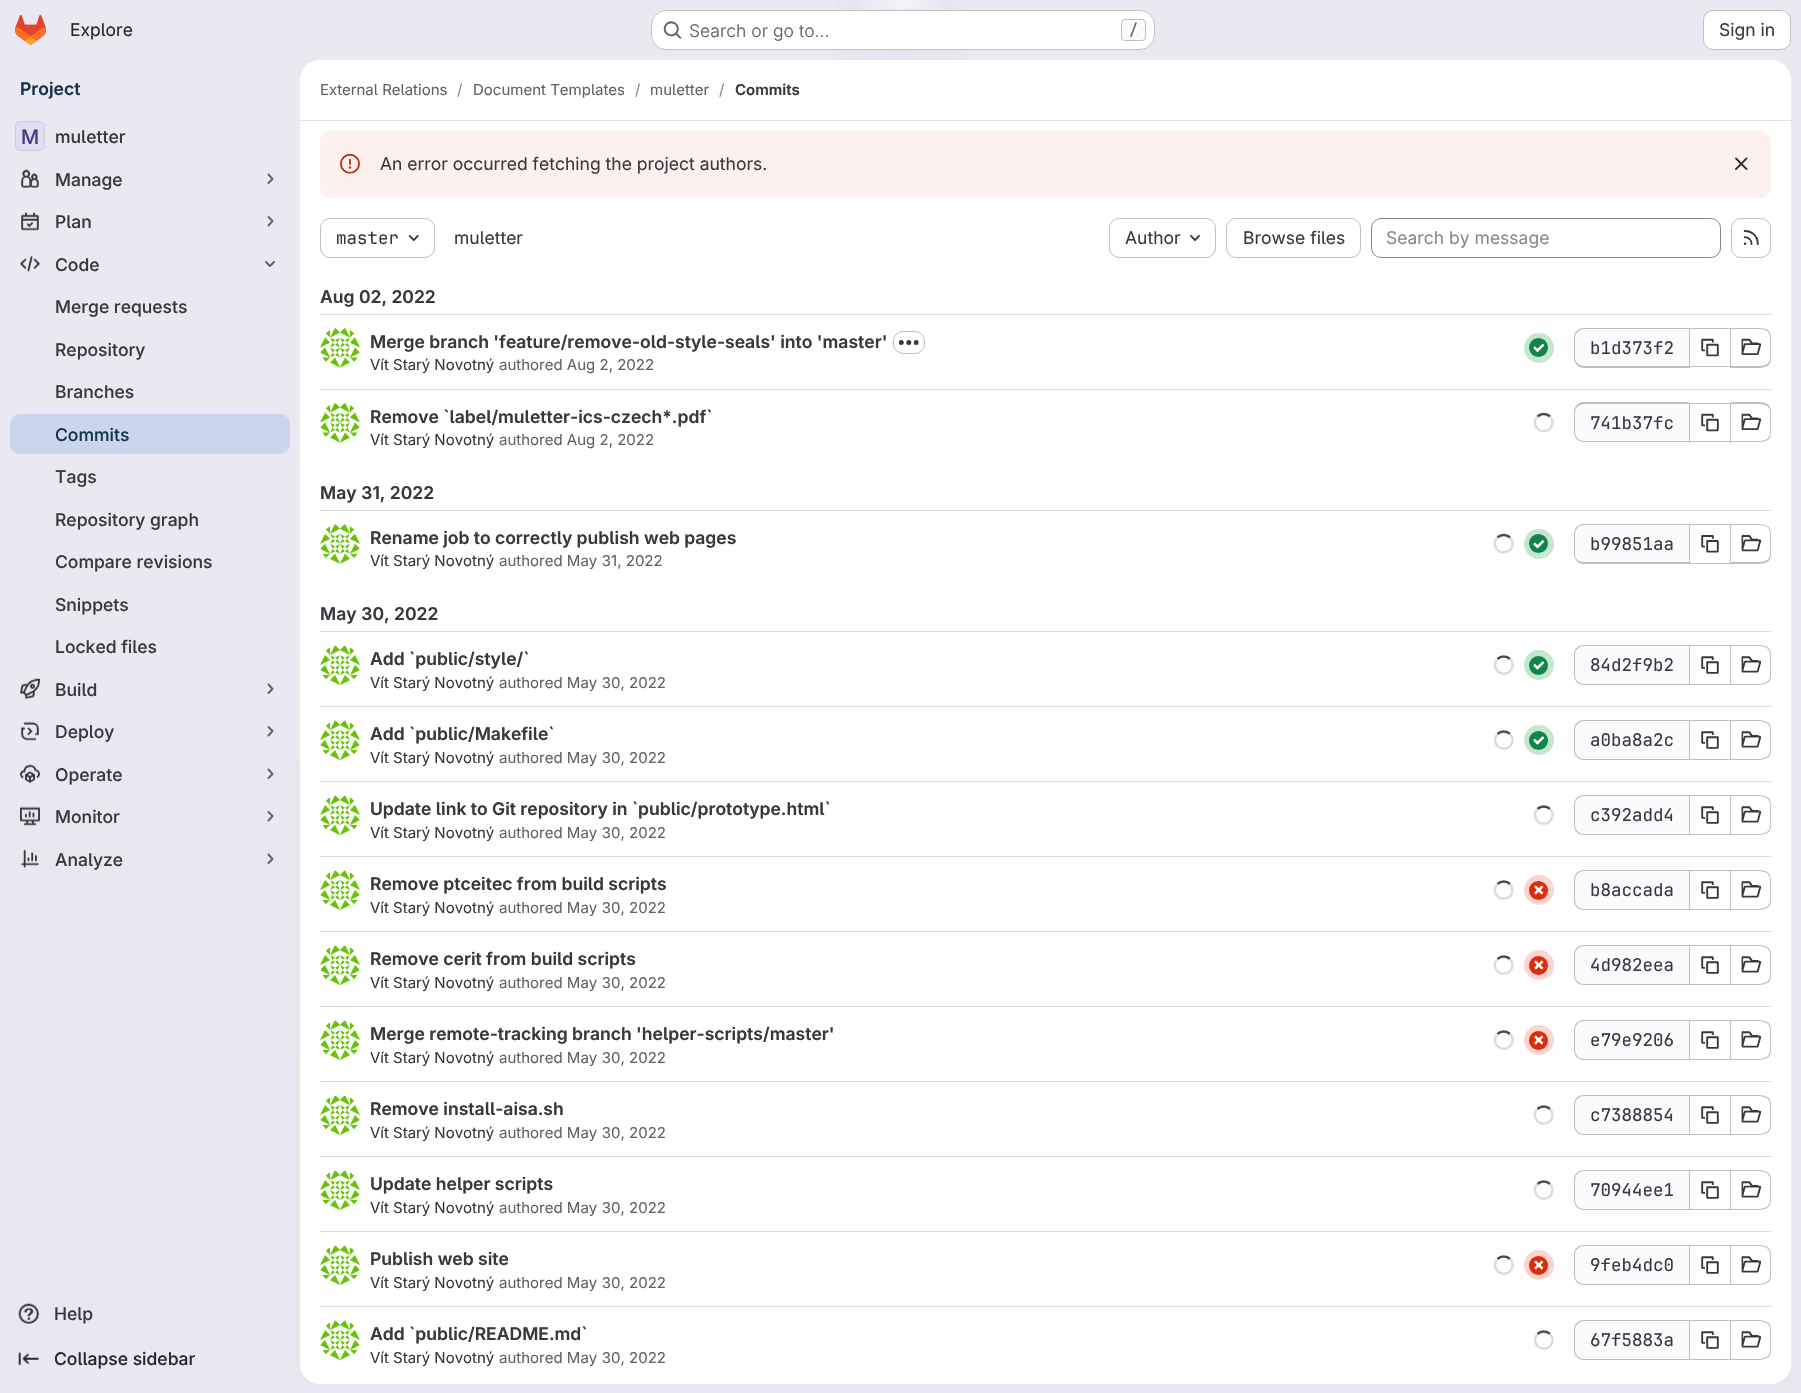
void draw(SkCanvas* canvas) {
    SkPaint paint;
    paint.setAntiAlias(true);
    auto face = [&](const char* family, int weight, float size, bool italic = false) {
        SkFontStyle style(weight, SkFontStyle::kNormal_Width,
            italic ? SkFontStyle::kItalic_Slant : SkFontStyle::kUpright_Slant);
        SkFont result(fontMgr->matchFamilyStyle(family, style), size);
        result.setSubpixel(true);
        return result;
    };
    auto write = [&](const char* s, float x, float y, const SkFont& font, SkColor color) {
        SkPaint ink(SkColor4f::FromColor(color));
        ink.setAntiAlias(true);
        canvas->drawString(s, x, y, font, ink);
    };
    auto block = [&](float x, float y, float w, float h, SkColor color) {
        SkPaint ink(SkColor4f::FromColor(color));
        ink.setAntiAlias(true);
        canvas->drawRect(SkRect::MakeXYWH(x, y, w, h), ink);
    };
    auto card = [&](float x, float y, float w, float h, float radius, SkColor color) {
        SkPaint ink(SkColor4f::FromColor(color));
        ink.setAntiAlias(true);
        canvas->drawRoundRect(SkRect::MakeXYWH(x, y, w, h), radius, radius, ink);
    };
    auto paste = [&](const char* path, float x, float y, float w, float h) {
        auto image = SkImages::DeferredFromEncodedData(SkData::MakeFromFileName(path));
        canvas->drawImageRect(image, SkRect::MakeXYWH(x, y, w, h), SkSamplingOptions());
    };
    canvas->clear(SK_ColorWHITE);
    {
        const SkColor colors[] = {SkColorSetRGB(232, 230, 240), SkColorSetRGB(234, 233, 242)};
        const float stops[] = {0, 0.7f};
        const SkPoint ends[] = {{1047, 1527}, {754, -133}};
        paint.setShader(SkGradientShader::MakeLinear(ends, colors, stops, 2, SkTileMode::kClamp));
        paint.setAlpha(255);
    }
    canvas->drawRect(SkRect::MakeXYWH(0, 0, 1801, 1393), paint);
    {
        const SkColor colors[] = {SkColorSetRGB(228, 226, 237), SkColorSetARGB(0, 228, 226, 237)};
        const float stops[] = {0, 0.1f};
        SkMatrix m = SkMatrix::Translate(901, 0).preScale(901, 1394);
        paint.setShader(SkGradientShader::MakeRadial({0, 0}, 1, colors, stops, 2, SkTileMode::kClamp, 0, &m));
        paint.setAlpha(255);
    }
    canvas->drawRect(SkRect::MakeXYWH(836, 0, 130, 60), paint);
    {
        const SkColor colors[] = {SkColorSetRGB(228, 226, 236), SkColorSetARGB(0, 228, 226, 236)};
        const float stops[] = {0, 0.07f};
        SkMatrix m = SkMatrix::Translate(901, 0).preScale(901, 1394);
        paint.setShader(SkGradientShader::MakeRadial({0, 0}, 1, colors, stops, 2, SkTileMode::kClamp, 0, &m));
        paint.setAlpha(255);
    }
    canvas->drawRect(SkRect::MakeXYWH(894, 23, 14, 17), paint);
    {
        const SkColor colors[] = {SkColorSetARGB(153, 255, 255, 255), SkColorSetARGB(0, 255, 255, 255)};
        const float stops[] = {0, 0.03f};
        paint.setShader(SkGradientShader::MakeRadial({901, 0}, 1659, colors, stops, 2, SkTileMode::kClamp));
        paint.setAlpha(255);
    }
    canvas->drawRect(SkRect::MakeXYWH(860, 0, 82, 42), paint);
    paste("pic1.png", 15, 15, 31, 30);
    auto kFont1 = face("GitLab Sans", 400, 17.5f);
    write("Explore", 70, 36, kFont1, SkColorSetRGB(40, 39, 45));
    card(651, 10, 504, 40, 15, SK_ColorWHITE);
    paint.setStyle(SkPaint::kStroke_Style);
    paint.setStrokeWidth(1);
    paint.setShader(nullptr);
    paint.setColor(SkColorSetARGB(61, 5, 5, 6));
    canvas->drawRoundRect(SkRect::MakeXYWH(651.5f, 10.5f, 503, 39), 14.5f, 14.5f, paint);
    paste("pic2.png", 663, 21, 19, 18);
    auto kFont2 = face("GitLab Sans", 300, 17.5f);
    write("Search or go to…", 689, 37, kFont2, SkColorSetRGB(98, 97, 104));
    paint.setStyle(SkPaint::kFill_Style);
    paint.setColor(SkColorSetRGB(251, 250, 253));
    canvas->drawRoundRect(SkRect::MakeXYWH(1121.5f, 19.5f, 24, 21), 3.5f, 3.5f, paint);
    paint.setStyle(SkPaint::kStroke_Style);
    paint.setColor(SkColorSetRGB(191, 191, 195));
    canvas->drawRoundRect(SkRect::MakeXYWH(1121.5f, 19.5f, 24, 21), 3.5f, 3.5f, paint);
    auto kFont3 = face("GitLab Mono", 500, 15);
    write("/", 1129, 35, kFont3, SkColorSetRGB(98, 97, 104));
    paint.setStyle(SkPaint::kFill_Style);
    paint.setColor(SK_ColorWHITE);
    canvas->drawRoundRect(SkRect::MakeXYWH(1703.5f, 10.5f, 87, 39), 9.5f, 9.5f, paint);
    paint.setStyle(SkPaint::kStroke_Style);
    paint.setColor(SkColorSetRGB(191, 191, 195));
    canvas->drawRoundRect(SkRect::MakeXYWH(1703.5f, 10.5f, 87, 39), 9.5f, 9.5f, paint);
    write("Sign in", 1719, 36, kFont1, SkColorSetRGB(58, 56, 63));
    auto kFont4 = face("GitLab Sans", 600, 17.5f);
    write("Project", 20, 95, kFont4, SkColorSetRGB(24, 51, 78));
    card(15, 121, 30, 30, 5, SkColorSetRGB(226, 222, 242));
    paint.setColor(SkColorSetARGB(20, 5, 5, 6));
    canvas->drawRoundRect(SkRect::MakeXYWH(15.5f, 121.5f, 29, 29), 4.5f, 4.5f, paint);
    auto kFont5 = face("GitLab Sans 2", 500, 20);
    write("M", 21, 144, kFont5, SkColorSetRGB(73, 60, 131));
    auto kFont6 = face("GitLab Sans", 500, 17.5f);
    write("muletter", 55, 143, kFont6, SkColorSetRGB(58, 56, 63));
    paste("pic3.png", 21, 169, 18, 19);
    write("Manage", 55, 186, kFont6, SkColorSetRGB(58, 56, 63));
    paint.setStrokeWidth(1.9f);
    paint.setStrokeCap(SkPaint::kRound_Cap);
    paint.setStrokeJoin(SkPaint::kRound_Join);
    paint.setColor(SkColorSetRGB(98, 97, 104));
    canvas->drawPath(SkPathBuilder().moveTo(268.5f, 174.5f).lineTo(272.5f, 179).lineTo(268.5f, 183).detach(), paint);
    paste("pic4.png", 21, 211, 18, 20);
    write("Plan", 55, 228, kFont6, SkColorSetRGB(58, 56, 63));
    canvas->drawPath(SkPathBuilder().moveTo(268.5f, 217).lineTo(272.5f, 221).lineTo(268.5f, 225.5f).detach(), paint);
    paste("pic5.png", 20, 255, 20, 17);
    write("Code", 55, 271, kFont6, SkColorSetRGB(58, 56, 63));
    canvas->drawPath(SkPathBuilder().moveTo(274, 262).lineTo(270, 266).lineTo(266, 262).detach(), paint);
    write("Merge requests", 55, 313, kFont6, SkColorSetRGB(58, 56, 63));
    write("Repository", 55, 356, kFont6, SkColorSetRGB(58, 56, 63));
    write("Branches", 55, 398, kFont6, SkColorSetRGB(58, 56, 63));
    card(10, 414, 280, 40, 10, SkColorSetRGB(201, 214, 235));
    write("Commits", 55, 441, kFont6, SkColorSetRGB(24, 51, 78));
    write("Tags", 55, 483, kFont6, SkColorSetRGB(58, 56, 63));
    write("Repository graph", 55, 526, kFont6, SkColorSetRGB(58, 56, 63));
    write("Compare revisions", 55, 568, kFont6, SkColorSetRGB(58, 56, 63));
    write("Snippets", 55, 611, kFont6, SkColorSetRGB(58, 56, 63));
    write("Locked files", 55, 653, kFont6, SkColorSetRGB(58, 56, 63));
    paste("pic6.png", 20, 678, 20, 21);
    write("Build", 55, 696, kFont6, SkColorSetRGB(58, 56, 63));
    canvas->drawPath(SkPathBuilder().moveTo(268.5f, 684.5f).lineTo(272.5f, 689).lineTo(268.5f, 693).detach(), paint);
    paste("pic7.png", 21, 721, 18, 20);
    write("Deploy", 55, 738, kFont6, SkColorSetRGB(58, 56, 63));
    canvas->drawPath(SkPathBuilder().moveTo(268.5f, 727).lineTo(272.5f, 731).lineTo(268.5f, 735.5f).detach(), paint);
    paste("pic8.png", 20, 764, 20, 19);
    write("Operate", 55, 781, kFont6, SkColorSetRGB(58, 56, 63));
    canvas->drawPath(SkPathBuilder().moveTo(268.5f, 769.5f).lineTo(272.5f, 774).lineTo(268.5f, 778).detach(), paint);
    paste("pic9.png", 20, 806, 20, 20);
    write("Monitor", 55, 823, kFont6, SkColorSetRGB(58, 56, 63));
    canvas->drawPath(SkPathBuilder().moveTo(268.5f, 812).lineTo(272.5f, 816).lineTo(268.5f, 820.5f).detach(), paint);
    paste("pic10.png", 21, 849, 18, 19);
    write("Analyze", 55, 866, kFont6, SkColorSetRGB(58, 56, 63));
    canvas->drawPath(SkPathBuilder().moveTo(268.5f, 854.5f).lineTo(272.5f, 859).lineTo(268.5f, 863).detach(), paint);
    paste("pic11.png", 18, 1303, 21, 21);
    write("Help", 54, 1320, kFont6, SkColorSetRGB(58, 56, 63));
    paste("pic12.png", 18, 1351, 21, 15);
    write("Collapse sidebar", 54, 1365, kFont6, SkColorSetRGB(40, 39, 45));
    card(300, 60, 1491, 1324, 20, SK_ColorWHITE);
    paint.setStyle(SkPaint::kFill_Style);
    paint.setColor(SK_ColorWHITE);
    canvas->drawPath(SkPathBuilder().moveTo(320, 60).lineTo(1771, 60).cubicTo(1782, 60, 1791, 69, 1791, 80).lineTo(1791, 121).lineTo(300, 121).lineTo(300, 80).cubicTo(300, 69, 309, 60, 320, 60).close().detach(), paint);
    block(300, 120, 1491, 1, SkColorSetRGB(225, 223, 236));
    auto kFont7 = face("GitLab Sans", 400, 15);
    write("External Relations", 320, 95, kFont7, SkColorSetRGB(98, 97, 104));
    write("/", 457, 95, kFont7, SkColorSetRGB(137, 136, 141));
    write("Document Templates", 473, 95, kFont7, SkColorSetRGB(98, 97, 104));
    write("/", 635, 95, kFont7, SkColorSetRGB(137, 136, 141));
    write("muletter", 650, 95, kFont7, SkColorSetRGB(98, 97, 104));
    write("/", 719, 95, kFont7, SkColorSetRGB(137, 136, 141));
    auto kFont8 = face("GitLab Sans", 600, 15);
    write("Commits", 735, 95, kFont8, SkColorSetRGB(58, 56, 63));
    card(320, 131, 1451, 67, 10, SkColorSetRGB(252, 241, 239));
    paste("pic13.png", 340, 153, 20, 21);
    write("An error occurred fetching the project authors.", 380, 170, kFont1, SkColorSetRGB(58, 56, 63));
    paste("pic14.png", 1735, 157, 13, 13);
    paint.setStyle(SkPaint::kStroke_Style);
    paint.setStrokeWidth(1);
    paint.setStrokeCap(SkPaint::kButt_Cap);
    paint.setStrokeJoin(SkPaint::kMiter_Join);
    paint.setColor(SkColorSetRGB(191, 191, 195));
    canvas->drawRoundRect(SkRect::MakeXYWH(320.5f, 218.5f, 114, 39), 9.5f, 9.5f, paint);
    auto kFont9 = face("GitLab Mono", 400, 17.5f);
    write("master", 336, 244, kFont9, SkColorSetRGB(58, 56, 63));
    paste("pic15.png", 408, 235, 11, 6);
    write("muletter", 454, 244, kFont1, SkColorSetRGB(58, 56, 63));
    canvas->drawRoundRect(SkRect::MakeXYWH(1109.5f, 218.5f, 106, 39), 9.5f, 9.5f, paint);
    write("Author", 1125, 244, kFont1, SkColorSetRGB(58, 56, 63));
    paste("pic16.png", 1190, 235, 10, 6);
    canvas->drawRoundRect(SkRect::MakeXYWH(1226.5f, 218.5f, 134, 39), 9.5f, 9.5f, paint);
    write("Browse files", 1243, 244, kFont1, SkColorSetRGB(58, 56, 63));
    paint.setColor(SkColorSetRGB(137, 136, 141));
    canvas->drawRoundRect(SkRect::MakeXYWH(1371.5f, 218.5f, 349, 39), 9.5f, 9.5f, paint);
    write("Search by message", 1386, 244, kFont1, SkColorSetRGB(137, 136, 141));
    paint.setColor(SkColorSetRGB(191, 191, 195));
    canvas->drawRoundRect(SkRect::MakeXYWH(1731.5f, 218.5f, 39, 39), 9.5f, 9.5f, paint);
    paste("pic17.png", 1743, 230, 16, 15);
    write("Aug 02, 2022", 320, 303, kFont4, SkColorSetRGB(58, 56, 63));
    block(320, 314, 1451, 1, SkColorSetRGB(220, 220, 222));
    block(320, 389, 1451, 1, SkColorSetRGB(220, 220, 222));
    paint.setColor(SkColorSetRGB(232, 231, 233));
    canvas->drawCircle(340, 348, 19.5f, paint);
    paste("pic18.png", 320, 328, 40, 40);
    write("Merge branch 'feature/remove-old-style-seals' into 'master'", 370, 348, kFont4, SkColorSetRGB(58, 56, 63));
    paint.setColor(SkColorSetRGB(191, 191, 195));
    canvas->drawRoundRect(SkRect::MakeXYWH(893.5f, 331.5f, 31, 22), 9.5f, 9.5f, paint);
    paste("pic19.png", 898, 340, 21, 5);
    write("Vít Starý Novotný", 370, 370, kFont7, SkColorSetRGB(58, 56, 63));
    write("authored Aug 2, 2022", 499, 370, kFont7, SkColorSetRGB(98, 97, 104));
    paint.setStrokeWidth(3);
    paint.setColor(SkColorSetRGB(195, 230, 205));
    canvas->drawCircle(1539, 348, 13.5f, paint);
    paint.setStyle(SkPaint::kFill_Style);
    paint.setColor(SkColorSetRGB(16, 133, 72));
    canvas->drawCircle(1538.5f, 347.5f, 11, paint);
    paint.setStyle(SkPaint::kStroke_Style);
    paint.setColor(SkColorSetRGB(195, 230, 205));
    canvas->drawCircle(1538.5f, 347.5f, 11, paint);
    paste("pic20.png", 1533, 343, 12, 9);
    paint.setStyle(SkPaint::kFill_Style);
    paint.setColor(SkColorSetRGB(251, 250, 253));
    canvas->drawPath(SkPathBuilder().moveTo(1584, 329).lineTo(1689, 329).lineTo(1689, 366).lineTo(1584, 366).cubicTo(1579, 366, 1575, 362, 1575, 357).lineTo(1575, 338).cubicTo(1575, 333, 1579, 329, 1584, 329).close().detach(), paint);
    paint.setColor(SkColorSetRGB(191, 191, 195));
    canvas->drawPath(SkPathBuilder(SkPathFillType::kEvenOdd).moveTo(1584, 328).lineTo(1689, 328).lineTo(1689, 368).lineTo(1584, 368).cubicTo(1578, 368, 1574, 363, 1574, 358).lineTo(1574, 338).cubicTo(1574, 332, 1578, 328, 1584, 328).close().moveTo(1584, 329).lineTo(1689, 329).lineTo(1689, 366).lineTo(1584, 366).cubicTo(1579, 366, 1575, 362, 1575, 358).lineTo(1575, 338).cubicTo(1575, 333, 1579, 329, 1584, 329).close().detach(), paint);
    write("b1d373f2", 1590, 354, kFont9, SkColorSetRGB(58, 56, 63));
    block(1690, 328, 40, 1, SkColorSetRGB(191, 191, 195));
    block(1690, 366, 40, 1, SkColorSetRGB(191, 191, 195));
    block(1689, 328, 1, 40, SkColorSetRGB(191, 191, 195));
    paste("pic21.png", 1701, 338, 18, 19);
    canvas->drawPath(SkPathBuilder(SkPathFillType::kEvenOdd).moveTo(1731, 328).lineTo(1756, 328).cubicTo(1773, 328, 1771, 333, 1771, 348).cubicTo(1771, 362, 1773, 368, 1756, 368).lineTo(1731, 368).close().moveTo(1731, 329).lineTo(1756, 329).cubicTo(1772, 329, 1770, 334, 1770, 348).cubicTo(1770, 361, 1772, 366, 1756, 366).lineTo(1731, 366).close().detach(), paint);
    block(1730, 328, 1, 40, SkColorSetRGB(191, 191, 195));
    paste("pic22.png", 1741, 338, 20, 17);
    paint.setStyle(SkPaint::kStroke_Style);
    paint.setStrokeWidth(1);
    paint.setColor(SkColorSetRGB(232, 231, 233));
    canvas->drawCircle(340, 423, 19.5f, paint);
    paste("pic18.png", 320, 403, 40, 40);
    write("Remove `label/muletter-ics-czech*.pdf`", 370, 423, kFont4, SkColorSetRGB(58, 56, 63));
    write("Vít Starý Novotný", 370, 445, kFont7, SkColorSetRGB(58, 56, 63));
    write("authored Aug 2, 2022", 499, 445, kFont7, SkColorSetRGB(98, 97, 104));
    paint.setStrokeWidth(2.5f);
    paint.setColor(SkColorSetRGB(76, 75, 81));
    canvas->drawPath(SkPathBuilder().moveTo(1537.5f, 416.5f).cubicTo(1541, 413, 1546.5f, 413, 1550, 416.5f).detach(), paint);
    paint.setColor(SkColorSetRGB(220, 220, 222));
    canvas->drawPath(SkPathBuilder().moveTo(1550, 416.5f).cubicTo(1551.5f, 418, 1552.5f, 420, 1552.5f, 422.5f).cubicTo(1552.5f, 433, 1537, 434.5f, 1535, 424).cubicTo(1534.5f, 421.5f, 1535.5f, 418.5f, 1537.5f, 416.5f).detach(), paint);
    paint.setStyle(SkPaint::kFill_Style);
    paint.setColor(SkColorSetRGB(251, 250, 253));
    canvas->drawPath(SkPathBuilder().moveTo(1584, 404).lineTo(1689, 404).lineTo(1689, 441).lineTo(1584, 441).cubicTo(1579, 441, 1575, 437, 1575, 432).lineTo(1575, 413).cubicTo(1575, 408, 1579, 404, 1584, 404).close().detach(), paint);
    paint.setColor(SkColorSetRGB(191, 191, 195));
    canvas->drawPath(SkPathBuilder(SkPathFillType::kEvenOdd).moveTo(1584, 402).lineTo(1689, 402).lineTo(1689, 442).lineTo(1584, 442).cubicTo(1578, 442, 1574, 438, 1574, 432).lineTo(1574, 412).cubicTo(1574, 407, 1578, 402, 1584, 402).close().moveTo(1584, 404).lineTo(1689, 404).lineTo(1689, 441).lineTo(1584, 441).cubicTo(1579, 441, 1575, 437, 1575, 432).lineTo(1575, 412).cubicTo(1575, 408, 1579, 404, 1584, 404).close().detach(), paint);
    write("741b37fc", 1590, 429, kFont9, SkColorSetRGB(58, 56, 63));
    block(1690, 403, 40, 1, SkColorSetRGB(191, 191, 195));
    block(1690, 441, 40, 1, SkColorSetRGB(191, 191, 195));
    block(1689, 403, 1, 40, SkColorSetRGB(191, 191, 195));
    paste("pic21.png", 1701, 413, 18, 19);
    canvas->drawPath(SkPathBuilder(SkPathFillType::kEvenOdd).moveTo(1731, 402).lineTo(1756, 402).cubicTo(1773, 402, 1771, 408, 1771, 422).cubicTo(1771, 437, 1773, 442, 1756, 442).lineTo(1731, 442).close().moveTo(1731, 404).lineTo(1756, 404).cubicTo(1772, 404, 1770, 409, 1770, 422).cubicTo(1770, 436, 1772, 441, 1756, 441).lineTo(1731, 441).close().detach(), paint);
    block(1730, 403, 1, 40, SkColorSetRGB(191, 191, 195));
    paste("pic22.png", 1741, 413, 20, 17);
    write("May 31, 2022", 320, 499, kFont4, SkColorSetRGB(58, 56, 63));
    block(320, 510, 1451, 1, SkColorSetRGB(220, 220, 222));
    paint.setStyle(SkPaint::kStroke_Style);
    paint.setStrokeWidth(1);
    paint.setColor(SkColorSetRGB(232, 231, 233));
    canvas->drawCircle(340, 544, 19.5f, paint);
    paste("pic23.png", 320, 524, 40, 40);
    write("Rename job to correctly publish web pages", 370, 544, kFont4, SkColorSetRGB(58, 56, 63));
    write("Vít Starý Novotný", 370, 566, kFont7, SkColorSetRGB(58, 56, 63));
    write("authored May 31, 2022", 499, 566, kFont7, SkColorSetRGB(98, 97, 104));
    paint.setStrokeWidth(2.5f);
    paint.setColor(SkColorSetRGB(76, 75, 81));
    canvas->drawPath(SkPathBuilder().moveTo(1497.5f, 537.5f).cubicTo(1501, 534, 1506.5f, 534, 1510, 537.5f).detach(), paint);
    paint.setColor(SkColorSetRGB(220, 220, 222));
    canvas->drawPath(SkPathBuilder().moveTo(1510, 537.5f).cubicTo(1511.5f, 539, 1512.5f, 541.5f, 1512.5f, 544).cubicTo(1512.5f, 554, 1497, 555.5f, 1495, 545.5f).cubicTo(1494.5f, 542.5f, 1495.5f, 539.5f, 1497.5f, 537.5f).detach(), paint);
    paint.setStrokeWidth(3);
    paint.setColor(SkColorSetRGB(195, 230, 205));
    canvas->drawCircle(1539, 544, 13.5f, paint);
    paint.setStyle(SkPaint::kFill_Style);
    paint.setColor(SkColorSetRGB(16, 133, 72));
    canvas->drawCircle(1538.5f, 543.5f, 11, paint);
    paint.setStyle(SkPaint::kStroke_Style);
    paint.setColor(SkColorSetRGB(195, 230, 205));
    canvas->drawCircle(1538.5f, 543.5f, 11, paint);
    paste("pic24.png", 1533, 540, 12, 9);
    paint.setStyle(SkPaint::kFill_Style);
    paint.setColor(SkColorSetRGB(251, 250, 253));
    canvas->drawPath(SkPathBuilder().moveTo(1584, 525).lineTo(1689, 525).lineTo(1689, 563).lineTo(1584, 563).cubicTo(1579, 563, 1575, 559, 1575, 554).lineTo(1575, 534).cubicTo(1575, 529, 1579, 525, 1584, 525).close().detach(), paint);
    paint.setColor(SkColorSetRGB(191, 191, 195));
    canvas->drawPath(SkPathBuilder(SkPathFillType::kEvenOdd).moveTo(1584, 524).lineTo(1689, 524).lineTo(1689, 564).lineTo(1584, 564).cubicTo(1578, 564, 1574, 559, 1574, 554).lineTo(1574, 534).cubicTo(1574, 528, 1578, 524, 1584, 524).close().moveTo(1584, 525).lineTo(1689, 525).lineTo(1689, 562).lineTo(1584, 562).cubicTo(1579, 562, 1575, 559, 1575, 554).lineTo(1575, 534).cubicTo(1575, 529, 1579, 525, 1584, 525).close().detach(), paint);
    write("b99851aa", 1590, 550, kFont9, SkColorSetRGB(58, 56, 63));
    block(1690, 524, 40, 1, SkColorSetRGB(191, 191, 195));
    block(1690, 563, 40, 1, SkColorSetRGB(191, 191, 195));
    block(1689, 524, 1, 40, SkColorSetRGB(191, 191, 195));
    paste("pic25.png", 1701, 535, 18, 18);
    canvas->drawPath(SkPathBuilder(SkPathFillType::kEvenOdd).moveTo(1731, 524).lineTo(1756, 524).cubicTo(1773, 524, 1771, 530, 1771, 544).cubicTo(1771, 558, 1773, 564, 1756, 564).lineTo(1731, 564).close().moveTo(1731, 525).lineTo(1756, 525).cubicTo(1772, 525, 1770, 530, 1770, 544).cubicTo(1770, 557, 1772, 562, 1756, 562).lineTo(1731, 562).close().detach(), paint);
    block(1730, 524, 1, 40, SkColorSetRGB(191, 191, 195));
    paste("pic26.png", 1741, 535, 20, 17);
    write("May 30, 2022", 320, 620, kFont4, SkColorSetRGB(58, 56, 63));
    block(320, 631, 1451, 1, SkColorSetRGB(220, 220, 222));
    block(320, 706, 1451, 1, SkColorSetRGB(220, 220, 222));
    paint.setStyle(SkPaint::kStroke_Style);
    paint.setStrokeWidth(1);
    paint.setColor(SkColorSetRGB(232, 231, 233));
    canvas->drawCircle(340, 665, 19.5f, paint);
    paste("pic27.png", 320, 645, 40, 40);
    write("Add `public/style/`", 370, 665, kFont4, SkColorSetRGB(58, 56, 63));
    write("Vít Starý Novotný", 370, 688, kFont7, SkColorSetRGB(58, 56, 63));
    write("authored May 30, 2022", 499, 688, kFont7, SkColorSetRGB(98, 97, 104));
    paint.setStrokeWidth(2.5f);
    paint.setColor(SkColorSetRGB(76, 75, 81));
    canvas->drawPath(SkPathBuilder().moveTo(1497.5f, 659).cubicTo(1501, 655.5f, 1506.5f, 655.5f, 1510, 659).detach(), paint);
    paint.setColor(SkColorSetRGB(220, 220, 222));
    canvas->drawPath(SkPathBuilder().moveTo(1510, 659).cubicTo(1512, 661, 1513, 664, 1512.5f, 666.5f).cubicTo(1510.5f, 677, 1495, 675.5f, 1495, 665).cubicTo(1495, 662.5f, 1496, 660.5f, 1497.5f, 659).detach(), paint);
    paint.setStrokeWidth(3);
    paint.setColor(SkColorSetRGB(195, 230, 205));
    canvas->drawCircle(1539, 665, 13.5f, paint);
    paint.setStyle(SkPaint::kFill_Style);
    paint.setColor(SkColorSetRGB(16, 133, 72));
    canvas->drawCircle(1538.5f, 665.5f, 11, paint);
    paint.setStyle(SkPaint::kStroke_Style);
    paint.setColor(SkColorSetRGB(195, 230, 205));
    canvas->drawCircle(1538.5f, 665.5f, 11, paint);
    paste("pic28.png", 1533, 661, 12, 9);
    paint.setStyle(SkPaint::kFill_Style);
    paint.setColor(SkColorSetRGB(251, 250, 253));
    canvas->drawPath(SkPathBuilder().moveTo(1584, 646).lineTo(1689, 646).lineTo(1689, 684).lineTo(1584, 684).cubicTo(1579, 684, 1575, 680, 1575, 675).lineTo(1575, 655).cubicTo(1575, 650, 1579, 646, 1584, 646).close().detach(), paint);
    paint.setColor(SkColorSetRGB(191, 191, 195));
    canvas->drawPath(SkPathBuilder(SkPathFillType::kEvenOdd).moveTo(1584, 645).lineTo(1689, 645).lineTo(1689, 685).lineTo(1584, 685).cubicTo(1578, 685, 1574, 681, 1574, 675).lineTo(1574, 655).cubicTo(1574, 649, 1578, 645, 1584, 645).close().moveTo(1584, 646).lineTo(1689, 646).lineTo(1689, 684).lineTo(1584, 684).cubicTo(1579, 684, 1575, 680, 1575, 675).lineTo(1575, 655).cubicTo(1575, 650, 1579, 646, 1584, 646).close().detach(), paint);
    write("84d2f9b2", 1590, 671, kFont9, SkColorSetRGB(58, 56, 63));
    block(1690, 645, 40, 1, SkColorSetRGB(191, 191, 195));
    block(1690, 684, 40, 1, SkColorSetRGB(191, 191, 195));
    block(1689, 645, 1, 40, SkColorSetRGB(191, 191, 195));
    paste("pic29.png", 1701, 656, 18, 18);
    canvas->drawPath(SkPathBuilder(SkPathFillType::kEvenOdd).moveTo(1731, 645).lineTo(1756, 645).cubicTo(1773, 645, 1771, 651, 1771, 665).cubicTo(1771, 679, 1773, 685, 1756, 685).lineTo(1731, 685).close().moveTo(1731, 646).lineTo(1756, 646).cubicTo(1772, 646, 1770, 652, 1770, 665).cubicTo(1770, 678, 1772, 684, 1756, 684).lineTo(1731, 684).close().detach(), paint);
    block(1730, 645, 1, 40, SkColorSetRGB(191, 191, 195));
    paste("pic30.png", 1741, 656, 20, 17);
    block(320, 781, 1451, 1, SkColorSetRGB(220, 220, 222));
    paint.setStyle(SkPaint::kStroke_Style);
    paint.setStrokeWidth(1);
    paint.setColor(SkColorSetRGB(232, 231, 233));
    canvas->drawCircle(340, 740, 19.5f, paint);
    paste("pic27.png", 320, 720, 40, 40);
    write("Add `public/Makefile`", 370, 740, kFont4, SkColorSetRGB(58, 56, 63));
    write("Vít Starý Novotný", 370, 763, kFont7, SkColorSetRGB(58, 56, 63));
    write("authored May 30, 2022", 499, 763, kFont7, SkColorSetRGB(98, 97, 104));
    paint.setStrokeWidth(2.5f);
    paint.setColor(SkColorSetRGB(76, 75, 81));
    canvas->drawPath(SkPathBuilder().moveTo(1497.5f, 734).cubicTo(1501, 730.5f, 1506.5f, 730.5f, 1510, 734).detach(), paint);
    paint.setColor(SkColorSetRGB(220, 220, 222));
    canvas->drawPath(SkPathBuilder().moveTo(1510, 734).cubicTo(1512, 736, 1513, 739, 1512.5f, 741.5f).cubicTo(1510.5f, 752, 1495, 750.5f, 1495, 740).cubicTo(1495, 737.5f, 1496, 735.5f, 1497.5f, 734).detach(), paint);
    paint.setStrokeWidth(3);
    paint.setColor(SkColorSetRGB(195, 230, 205));
    canvas->drawCircle(1539, 740, 13.5f, paint);
    paint.setStyle(SkPaint::kFill_Style);
    paint.setColor(SkColorSetRGB(16, 133, 72));
    canvas->drawCircle(1538.5f, 740.5f, 11, paint);
    paint.setStyle(SkPaint::kStroke_Style);
    paint.setColor(SkColorSetRGB(195, 230, 205));
    canvas->drawCircle(1538.5f, 740.5f, 11, paint);
    paste("pic28.png", 1533, 736, 12, 9);
    paint.setStyle(SkPaint::kFill_Style);
    paint.setColor(SkColorSetRGB(251, 250, 253));
    canvas->drawPath(SkPathBuilder().moveTo(1584, 721).lineTo(1689, 721).lineTo(1689, 759).lineTo(1584, 759).cubicTo(1579, 759, 1575, 755, 1575, 750).lineTo(1575, 730).cubicTo(1575, 725, 1579, 721, 1584, 721).close().detach(), paint);
    paint.setColor(SkColorSetRGB(191, 191, 195));
    canvas->drawPath(SkPathBuilder(SkPathFillType::kEvenOdd).moveTo(1584, 720).lineTo(1689, 720).lineTo(1689, 760).lineTo(1584, 760).cubicTo(1578, 760, 1574, 756, 1574, 750).lineTo(1574, 730).cubicTo(1574, 724, 1578, 720, 1584, 720).close().moveTo(1584, 721).lineTo(1689, 721).lineTo(1689, 759).lineTo(1584, 759).cubicTo(1579, 759, 1575, 755, 1575, 750).lineTo(1575, 730).cubicTo(1575, 725, 1579, 721, 1584, 721).close().detach(), paint);
    write("a0ba8a2c", 1590, 746, kFont9, SkColorSetRGB(58, 56, 63));
    block(1690, 720, 40, 1, SkColorSetRGB(191, 191, 195));
    block(1690, 759, 40, 1, SkColorSetRGB(191, 191, 195));
    block(1689, 720, 1, 40, SkColorSetRGB(191, 191, 195));
    paste("pic29.png", 1701, 731, 18, 18);
    canvas->drawPath(SkPathBuilder(SkPathFillType::kEvenOdd).moveTo(1731, 720).lineTo(1756, 720).cubicTo(1773, 720, 1771, 726, 1771, 740).cubicTo(1771, 754, 1773, 760, 1756, 760).lineTo(1731, 760).close().moveTo(1731, 721).lineTo(1756, 721).cubicTo(1772, 721, 1770, 727, 1770, 740).cubicTo(1770, 753, 1772, 759, 1756, 759).lineTo(1731, 759).close().detach(), paint);
    block(1730, 720, 1, 40, SkColorSetRGB(191, 191, 195));
    paste("pic30.png", 1741, 731, 20, 17);
    block(320, 856, 1451, 1, SkColorSetRGB(220, 220, 222));
    paint.setStyle(SkPaint::kStroke_Style);
    paint.setStrokeWidth(1);
    paint.setColor(SkColorSetRGB(232, 231, 233));
    canvas->drawCircle(340, 815, 19.5f, paint);
    paste("pic27.png", 320, 795, 40, 40);
    write("Update link to Git repository in `public/prototype.html`", 370, 815, kFont4, SkColorSetRGB(58, 56, 63));
    write("Vít Starý Novotný", 370, 838, kFont7, SkColorSetRGB(58, 56, 63));
    write("authored May 30, 2022", 499, 838, kFont7, SkColorSetRGB(98, 97, 104));
    paint.setStrokeWidth(2.5f);
    paint.setColor(SkColorSetRGB(76, 75, 81));
    canvas->drawPath(SkPathBuilder().moveTo(1537.5f, 809).cubicTo(1541, 805.5f, 1546.5f, 805.5f, 1550, 809).detach(), paint);
    paint.setColor(SkColorSetRGB(220, 220, 222));
    canvas->drawPath(SkPathBuilder().moveTo(1550, 809).cubicTo(1552, 811, 1553, 814, 1552.5f, 816.5f).cubicTo(1550.5f, 827, 1535, 825.5f, 1535, 815).cubicTo(1535, 812.5f, 1536, 810.5f, 1537.5f, 809).detach(), paint);
    paint.setStyle(SkPaint::kFill_Style);
    paint.setColor(SkColorSetRGB(251, 250, 253));
    canvas->drawPath(SkPathBuilder().moveTo(1584, 796).lineTo(1689, 796).lineTo(1689, 834).lineTo(1584, 834).cubicTo(1579, 834, 1575, 830, 1575, 825).lineTo(1575, 805).cubicTo(1575, 800, 1579, 796, 1584, 796).close().detach(), paint);
    paint.setColor(SkColorSetRGB(191, 191, 195));
    canvas->drawPath(SkPathBuilder(SkPathFillType::kEvenOdd).moveTo(1584, 795).lineTo(1689, 795).lineTo(1689, 835).lineTo(1584, 835).cubicTo(1578, 835, 1574, 831, 1574, 825).lineTo(1574, 805).cubicTo(1574, 799, 1578, 795, 1584, 795).close().moveTo(1584, 796).lineTo(1689, 796).lineTo(1689, 834).lineTo(1584, 834).cubicTo(1579, 834, 1575, 830, 1575, 825).lineTo(1575, 805).cubicTo(1575, 800, 1579, 796, 1584, 796).close().detach(), paint);
    write("c392add4", 1590, 821, kFont9, SkColorSetRGB(58, 56, 63));
    block(1690, 795, 40, 1, SkColorSetRGB(191, 191, 195));
    block(1690, 834, 40, 1, SkColorSetRGB(191, 191, 195));
    block(1689, 795, 1, 40, SkColorSetRGB(191, 191, 195));
    paste("pic29.png", 1701, 806, 18, 18);
    canvas->drawPath(SkPathBuilder(SkPathFillType::kEvenOdd).moveTo(1731, 795).lineTo(1756, 795).cubicTo(1773, 795, 1771, 801, 1771, 815).cubicTo(1771, 829, 1773, 835, 1756, 835).lineTo(1731, 835).close().moveTo(1731, 796).lineTo(1756, 796).cubicTo(1772, 796, 1770, 802, 1770, 815).cubicTo(1770, 828, 1772, 834, 1756, 834).lineTo(1731, 834).close().detach(), paint);
    block(1730, 795, 1, 40, SkColorSetRGB(191, 191, 195));
    paste("pic30.png", 1741, 806, 20, 17);
    block(320, 931, 1451, 1, SkColorSetRGB(220, 220, 222));
    paint.setStyle(SkPaint::kStroke_Style);
    paint.setStrokeWidth(1);
    paint.setColor(SkColorSetRGB(232, 231, 233));
    canvas->drawCircle(340, 890, 19.5f, paint);
    paste("pic27.png", 320, 870, 40, 40);
    write("Remove ptceitec from build scripts", 370, 890, kFont4, SkColorSetRGB(58, 56, 63));
    write("Vít Starý Novotný", 370, 913, kFont7, SkColorSetRGB(58, 56, 63));
    write("authored May 30, 2022", 499, 913, kFont7, SkColorSetRGB(98, 97, 104));
    paint.setStrokeWidth(2.5f);
    paint.setColor(SkColorSetRGB(76, 75, 81));
    canvas->drawPath(SkPathBuilder().moveTo(1497.5f, 884).cubicTo(1501, 880.5f, 1506.5f, 880.5f, 1510, 884).detach(), paint);
    paint.setColor(SkColorSetRGB(220, 220, 222));
    canvas->drawPath(SkPathBuilder().moveTo(1510, 884).cubicTo(1511.5f, 885.5f, 1512.5f, 887.5f, 1512.5f, 890).cubicTo(1512.5f, 900.5f, 1497, 902, 1495, 891.5f).cubicTo(1494.5f, 889, 1495.5f, 886, 1497.5f, 884).detach(), paint);
    paint.setStrokeWidth(3);
    paint.setColor(SkColorSetRGB(253, 212, 205));
    canvas->drawCircle(1539, 890, 13.5f, paint);
    paint.setStyle(SkPaint::kFill_Style);
    paint.setColor(SkColorSetRGB(221, 43, 14));
    canvas->drawCircle(1538.5f, 890.5f, 11, paint);
    paint.setStyle(SkPaint::kStroke_Style);
    paint.setColor(SkColorSetRGB(253, 212, 205));
    canvas->drawCircle(1538.5f, 890.5f, 11, paint);
    paste("pic31.png", 1534, 885, 10, 10);
    paint.setStyle(SkPaint::kFill_Style);
    paint.setColor(SkColorSetRGB(251, 250, 253));
    canvas->drawPath(SkPathBuilder().moveTo(1584, 871).lineTo(1689, 871).lineTo(1689, 909).lineTo(1584, 909).cubicTo(1579, 909, 1575, 905, 1575, 900).lineTo(1575, 880).cubicTo(1575, 875, 1579, 871, 1584, 871).close().detach(), paint);
    paint.setColor(SkColorSetRGB(191, 191, 195));
    canvas->drawPath(SkPathBuilder(SkPathFillType::kEvenOdd).moveTo(1584, 870).lineTo(1689, 870).lineTo(1689, 910).lineTo(1584, 910).cubicTo(1578, 910, 1574, 906, 1574, 900).lineTo(1574, 880).cubicTo(1574, 874, 1578, 870, 1584, 870).close().moveTo(1584, 871).lineTo(1689, 871).lineTo(1689, 909).lineTo(1584, 909).cubicTo(1579, 909, 1575, 905, 1575, 900).lineTo(1575, 880).cubicTo(1575, 875, 1579, 871, 1584, 871).close().detach(), paint);
    write("b8accada", 1590, 896, kFont9, SkColorSetRGB(58, 56, 63));
    block(1690, 870, 40, 1, SkColorSetRGB(191, 191, 195));
    block(1690, 909, 40, 1, SkColorSetRGB(191, 191, 195));
    block(1689, 870, 1, 40, SkColorSetRGB(191, 191, 195));
    paste("pic29.png", 1701, 881, 18, 18);
    canvas->drawPath(SkPathBuilder(SkPathFillType::kEvenOdd).moveTo(1731, 870).lineTo(1756, 870).cubicTo(1773, 870, 1771, 876, 1771, 890).cubicTo(1771, 904, 1773, 910, 1756, 910).lineTo(1731, 910).close().moveTo(1731, 871).lineTo(1756, 871).cubicTo(1772, 871, 1770, 877, 1770, 890).cubicTo(1770, 903, 1772, 909, 1756, 909).lineTo(1731, 909).close().detach(), paint);
    block(1730, 870, 1, 40, SkColorSetRGB(191, 191, 195));
    paste("pic30.png", 1741, 881, 20, 17);
    block(320, 1006, 1451, 1, SkColorSetRGB(220, 220, 222));
    paint.setStyle(SkPaint::kStroke_Style);
    paint.setStrokeWidth(1);
    paint.setColor(SkColorSetRGB(232, 231, 233));
    canvas->drawCircle(340, 965, 19.5f, paint);
    paste("pic27.png", 320, 945, 40, 40);
    write("Remove cerit from build scripts", 370, 965, kFont4, SkColorSetRGB(58, 56, 63));
    write("Vít Starý Novotný", 370, 988, kFont7, SkColorSetRGB(58, 56, 63));
    write("authored May 30, 2022", 499, 988, kFont7, SkColorSetRGB(98, 97, 104));
    paint.setStrokeWidth(2.5f);
    paint.setColor(SkColorSetRGB(76, 75, 81));
    canvas->drawPath(SkPathBuilder().moveTo(1497.5f, 959).cubicTo(1501, 955.5f, 1506.5f, 955.5f, 1510, 959).detach(), paint);
    paint.setColor(SkColorSetRGB(220, 220, 222));
    canvas->drawPath(SkPathBuilder().moveTo(1510, 959).cubicTo(1511.5f, 960.5f, 1512.5f, 962.5f, 1512.5f, 965).cubicTo(1512.5f, 975.5f, 1497, 977, 1495, 966.5f).cubicTo(1494.5f, 964, 1495.5f, 961, 1497.5f, 959).detach(), paint);
    paint.setStrokeWidth(3);
    paint.setColor(SkColorSetRGB(253, 212, 205));
    canvas->drawCircle(1539, 965, 13.5f, paint);
    paint.setStyle(SkPaint::kFill_Style);
    paint.setColor(SkColorSetRGB(221, 43, 14));
    canvas->drawCircle(1538.5f, 965.5f, 11, paint);
    paint.setStyle(SkPaint::kStroke_Style);
    paint.setColor(SkColorSetRGB(253, 212, 205));
    canvas->drawCircle(1538.5f, 965.5f, 11, paint);
    paste("pic31.png", 1534, 960, 10, 10);
    paint.setStyle(SkPaint::kFill_Style);
    paint.setColor(SkColorSetRGB(251, 250, 253));
    canvas->drawPath(SkPathBuilder().moveTo(1584, 946).lineTo(1689, 946).lineTo(1689, 984).lineTo(1584, 984).cubicTo(1579, 984, 1575, 980, 1575, 975).lineTo(1575, 955).cubicTo(1575, 950, 1579, 946, 1584, 946).close().detach(), paint);
    paint.setColor(SkColorSetRGB(191, 191, 195));
    canvas->drawPath(SkPathBuilder(SkPathFillType::kEvenOdd).moveTo(1584, 945).lineTo(1689, 945).lineTo(1689, 985).lineTo(1584, 985).cubicTo(1578, 985, 1574, 981, 1574, 975).lineTo(1574, 955).cubicTo(1574, 949, 1578, 945, 1584, 945).close().moveTo(1584, 946).lineTo(1689, 946).lineTo(1689, 984).lineTo(1584, 984).cubicTo(1579, 984, 1575, 980, 1575, 975).lineTo(1575, 955).cubicTo(1575, 950, 1579, 946, 1584, 946).close().detach(), paint);
    write("4d982eea", 1590, 971, kFont9, SkColorSetRGB(58, 56, 63));
    block(1690, 945, 40, 1, SkColorSetRGB(191, 191, 195));
    block(1690, 984, 40, 1, SkColorSetRGB(191, 191, 195));
    block(1689, 945, 1, 40, SkColorSetRGB(191, 191, 195));
    paste("pic29.png", 1701, 956, 18, 18);
    canvas->drawPath(SkPathBuilder(SkPathFillType::kEvenOdd).moveTo(1731, 945).lineTo(1756, 945).cubicTo(1773, 945, 1771, 951, 1771, 965).cubicTo(1771, 979, 1773, 985, 1756, 985).lineTo(1731, 985).close().moveTo(1731, 946).lineTo(1756, 946).cubicTo(1772, 946, 1770, 952, 1770, 965).cubicTo(1770, 978, 1772, 984, 1756, 984).lineTo(1731, 984).close().detach(), paint);
    block(1730, 945, 1, 40, SkColorSetRGB(191, 191, 195));
    paste("pic30.png", 1741, 956, 20, 17);
    block(320, 1081, 1451, 1, SkColorSetRGB(220, 220, 222));
    paint.setStyle(SkPaint::kStroke_Style);
    paint.setStrokeWidth(1);
    paint.setColor(SkColorSetRGB(232, 231, 233));
    canvas->drawCircle(340, 1040, 19.5f, paint);
    paste("pic27.png", 320, 1020, 40, 40);
    write("Merge remote-tracking branch 'helper-scripts/master'", 370, 1040, kFont4, SkColorSetRGB(58, 56, 63));
    write("Vít Starý Novotný", 370, 1063, kFont7, SkColorSetRGB(58, 56, 63));
    write("authored May 30, 2022", 499, 1063, kFont7, SkColorSetRGB(98, 97, 104));
    paint.setStrokeWidth(2.5f);
    paint.setColor(SkColorSetRGB(76, 75, 81));
    canvas->drawPath(SkPathBuilder().moveTo(1497.5f, 1034).cubicTo(1501, 1030.5f, 1506.5f, 1030.5f, 1510, 1034).detach(), paint);
    paint.setColor(SkColorSetRGB(220, 220, 222));
    canvas->drawPath(SkPathBuilder().moveTo(1510, 1034).cubicTo(1512, 1036, 1513, 1039, 1512.5f, 1041.5f).cubicTo(1510.5f, 1052, 1495, 1050.5f, 1495, 1040).cubicTo(1495, 1037.5f, 1496, 1035.5f, 1497.5f, 1034).detach(), paint);
    paint.setStrokeWidth(3);
    paint.setColor(SkColorSetRGB(253, 212, 205));
    canvas->drawCircle(1539, 1040, 13.5f, paint);
    paint.setStyle(SkPaint::kFill_Style);
    paint.setColor(SkColorSetRGB(221, 43, 14));
    canvas->drawCircle(1538.5f, 1040.5f, 11, paint);
    paint.setStyle(SkPaint::kStroke_Style);
    paint.setColor(SkColorSetRGB(253, 212, 205));
    canvas->drawCircle(1538.5f, 1040.5f, 11, paint);
    paste("pic31.png", 1534, 1035, 10, 10);
    paint.setStyle(SkPaint::kFill_Style);
    paint.setColor(SkColorSetRGB(251, 250, 253));
    canvas->drawPath(SkPathBuilder().moveTo(1584, 1021).lineTo(1689, 1021).lineTo(1689, 1059).lineTo(1584, 1059).cubicTo(1579, 1059, 1575, 1055, 1575, 1050).lineTo(1575, 1030).cubicTo(1575, 1025, 1579, 1021, 1584, 1021).close().detach(), paint);
    paint.setColor(SkColorSetRGB(191, 191, 195));
    canvas->drawPath(SkPathBuilder(SkPathFillType::kEvenOdd).moveTo(1584, 1020).lineTo(1689, 1020).lineTo(1689, 1060).lineTo(1584, 1060).cubicTo(1578, 1060, 1574, 1056, 1574, 1050).lineTo(1574, 1030).cubicTo(1574, 1024, 1578, 1020, 1584, 1020).close().moveTo(1584, 1021).lineTo(1689, 1021).lineTo(1689, 1059).lineTo(1584, 1059).cubicTo(1579, 1059, 1575, 1055, 1575, 1050).lineTo(1575, 1030).cubicTo(1575, 1025, 1579, 1021, 1584, 1021).close().detach(), paint);
    write("e79e9206", 1590, 1046, kFont9, SkColorSetRGB(58, 56, 63));
    block(1690, 1020, 40, 1, SkColorSetRGB(191, 191, 195));
    block(1690, 1059, 40, 1, SkColorSetRGB(191, 191, 195));
    block(1689, 1020, 1, 40, SkColorSetRGB(191, 191, 195));
    paste("pic29.png", 1701, 1031, 18, 18);
    canvas->drawPath(SkPathBuilder(SkPathFillType::kEvenOdd).moveTo(1731, 1020).lineTo(1756, 1020).cubicTo(1773, 1020, 1771, 1026, 1771, 1040).cubicTo(1771, 1054, 1773, 1060, 1756, 1060).lineTo(1731, 1060).close().moveTo(1731, 1021).lineTo(1756, 1021).cubicTo(1772, 1021, 1770, 1027, 1770, 1040).cubicTo(1770, 1053, 1772, 1059, 1756, 1059).lineTo(1731, 1059).close().detach(), paint);
    block(1730, 1020, 1, 40, SkColorSetRGB(191, 191, 195));
    paste("pic30.png", 1741, 1031, 20, 17);
    block(320, 1156, 1451, 1, SkColorSetRGB(220, 220, 222));
    paint.setStyle(SkPaint::kStroke_Style);
    paint.setStrokeWidth(1);
    paint.setColor(SkColorSetRGB(232, 231, 233));
    canvas->drawCircle(340, 1115, 19.5f, paint);
    paste("pic27.png", 320, 1095, 40, 40);
    write("Remove install-aisa.sh", 370, 1115, kFont4, SkColorSetRGB(58, 56, 63));
    write("Vít Starý Novotný", 370, 1138, kFont7, SkColorSetRGB(58, 56, 63));
    write("authored May 30, 2022", 499, 1138, kFont7, SkColorSetRGB(98, 97, 104));
    paint.setStrokeWidth(2.5f);
    paint.setColor(SkColorSetRGB(76, 75, 81));
    canvas->drawPath(SkPathBuilder().moveTo(1537.5f, 1109).cubicTo(1541, 1105.5f, 1546.5f, 1105.5f, 1550, 1109).detach(), paint);
    paint.setColor(SkColorSetRGB(220, 220, 222));
    canvas->drawPath(SkPathBuilder().moveTo(1550, 1109).cubicTo(1551.5f, 1110.5f, 1552.5f, 1112.5f, 1552.5f, 1115).cubicTo(1552.5f, 1125.5f, 1537, 1127, 1535, 1116.5f).cubicTo(1534.5f, 1114, 1535.5f, 1111, 1537.5f, 1109).detach(), paint);
    paint.setStyle(SkPaint::kFill_Style);
    paint.setColor(SkColorSetRGB(251, 250, 253));
    canvas->drawPath(SkPathBuilder().moveTo(1584, 1096).lineTo(1689, 1096).lineTo(1689, 1134).lineTo(1584, 1134).cubicTo(1579, 1134, 1575, 1130, 1575, 1125).lineTo(1575, 1105).cubicTo(1575, 1100, 1579, 1096, 1584, 1096).close().detach(), paint);
    paint.setColor(SkColorSetRGB(191, 191, 195));
    canvas->drawPath(SkPathBuilder(SkPathFillType::kEvenOdd).moveTo(1584, 1095).lineTo(1689, 1095).lineTo(1689, 1135).lineTo(1584, 1135).cubicTo(1578, 1135, 1574, 1131, 1574, 1125).lineTo(1574, 1105).cubicTo(1574, 1099, 1578, 1095, 1584, 1095).close().moveTo(1584, 1096).lineTo(1689, 1096).lineTo(1689, 1134).lineTo(1584, 1134).cubicTo(1579, 1134, 1575, 1130, 1575, 1125).lineTo(1575, 1105).cubicTo(1575, 1100, 1579, 1096, 1584, 1096).close().detach(), paint);
    write("c7388854", 1590, 1121, kFont9, SkColorSetRGB(58, 56, 63));
    block(1690, 1095, 40, 1, SkColorSetRGB(191, 191, 195));
    block(1690, 1134, 40, 1, SkColorSetRGB(191, 191, 195));
    block(1689, 1095, 1, 40, SkColorSetRGB(191, 191, 195));
    paste("pic29.png", 1701, 1106, 18, 18);
    canvas->drawPath(SkPathBuilder(SkPathFillType::kEvenOdd).moveTo(1731, 1095).lineTo(1756, 1095).cubicTo(1773, 1095, 1771, 1101, 1771, 1115).cubicTo(1771, 1129, 1773, 1135, 1756, 1135).lineTo(1731, 1135).close().moveTo(1731, 1096).lineTo(1756, 1096).cubicTo(1772, 1096, 1770, 1102, 1770, 1115).cubicTo(1770, 1128, 1772, 1134, 1756, 1134).lineTo(1731, 1134).close().detach(), paint);
    block(1730, 1095, 1, 40, SkColorSetRGB(191, 191, 195));
    paste("pic30.png", 1741, 1106, 20, 17);
    block(320, 1231, 1451, 1, SkColorSetRGB(220, 220, 222));
    paint.setStyle(SkPaint::kStroke_Style);
    paint.setStrokeWidth(1);
    paint.setColor(SkColorSetRGB(232, 231, 233));
    canvas->drawCircle(340, 1190, 19.5f, paint);
    paste("pic32.png", 320, 1170, 40, 40);
    write("Update helper scripts", 370, 1190, kFont4, SkColorSetRGB(58, 56, 63));
    write("Vít Starý Novotný", 370, 1213, kFont7, SkColorSetRGB(58, 56, 63));
    write("authored May 30, 2022", 499, 1213, kFont7, SkColorSetRGB(98, 97, 104));
    paint.setStrokeWidth(2.5f);
    paint.setColor(SkColorSetRGB(76, 75, 81));
    canvas->drawPath(SkPathBuilder().moveTo(1537.5f, 1184).cubicTo(1541, 1180.5f, 1546.5f, 1180.5f, 1550, 1184).detach(), paint);
    paint.setColor(SkColorSetRGB(220, 220, 222));
    canvas->drawPath(SkPathBuilder().moveTo(1550, 1184).cubicTo(1551.5f, 1185.5f, 1552.5f, 1187.5f, 1552.5f, 1190).cubicTo(1552.5f, 1200.5f, 1537, 1202, 1535, 1191.5f).cubicTo(1534.5f, 1189, 1535.5f, 1186, 1537.5f, 1184).detach(), paint);
    paint.setStyle(SkPaint::kFill_Style);
    paint.setColor(SkColorSetRGB(251, 250, 253));
    canvas->drawPath(SkPathBuilder().moveTo(1584, 1171).lineTo(1689, 1171).lineTo(1689, 1209).lineTo(1584, 1209).cubicTo(1579, 1209, 1575, 1205, 1575, 1200).lineTo(1575, 1180).cubicTo(1575, 1175, 1579, 1171, 1584, 1171).close().detach(), paint);
    paint.setColor(SkColorSetRGB(191, 191, 195));
    canvas->drawPath(SkPathBuilder(SkPathFillType::kEvenOdd).moveTo(1584, 1170).lineTo(1689, 1170).lineTo(1689, 1210).lineTo(1584, 1210).cubicTo(1578, 1210, 1574, 1206, 1574, 1200).lineTo(1574, 1180).cubicTo(1574, 1174, 1578, 1170, 1584, 1170).close().moveTo(1584, 1171).lineTo(1689, 1171).lineTo(1689, 1209).lineTo(1584, 1209).cubicTo(1579, 1209, 1575, 1205, 1575, 1200).lineTo(1575, 1180).cubicTo(1575, 1175, 1579, 1171, 1584, 1171).close().detach(), paint);
    write("70944ee1", 1590, 1196, kFont9, SkColorSetRGB(58, 56, 63));
    block(1690, 1170, 40, 1, SkColorSetRGB(191, 191, 195));
    block(1690, 1209, 40, 1, SkColorSetRGB(191, 191, 195));
    block(1689, 1170, 1, 40, SkColorSetRGB(191, 191, 195));
    paste("pic29.png", 1701, 1181, 18, 18);
    canvas->drawPath(SkPathBuilder(SkPathFillType::kEvenOdd).moveTo(1731, 1170).lineTo(1756, 1170).cubicTo(1773, 1170, 1771, 1176, 1771, 1190).cubicTo(1771, 1204, 1773, 1210, 1756, 1210).lineTo(1731, 1210).close().moveTo(1731, 1171).lineTo(1756, 1171).cubicTo(1772, 1171, 1770, 1177, 1770, 1190).cubicTo(1770, 1203, 1772, 1209, 1756, 1209).lineTo(1731, 1209).close().detach(), paint);
    block(1730, 1170, 1, 40, SkColorSetRGB(191, 191, 195));
    paste("pic30.png", 1741, 1181, 20, 17);
    block(320, 1306, 1451, 1, SkColorSetRGB(220, 220, 222));
    paint.setStyle(SkPaint::kStroke_Style);
    paint.setStrokeWidth(1);
    paint.setColor(SkColorSetRGB(232, 231, 233));
    canvas->drawCircle(340, 1265, 19.5f, paint);
    paste("pic33.png", 320, 1245, 40, 40);
    write("Publish web site", 370, 1265, kFont4, SkColorSetRGB(58, 56, 63));
    write("Vít Starý Novotný", 370, 1288, kFont7, SkColorSetRGB(58, 56, 63));
    write("authored May 30, 2022", 499, 1288, kFont7, SkColorSetRGB(98, 97, 104));
    paint.setStrokeWidth(2.5f);
    paint.setColor(SkColorSetRGB(76, 75, 81));
    canvas->drawPath(SkPathBuilder().moveTo(1497.5f, 1259).cubicTo(1501, 1255.5f, 1506.5f, 1255.5f, 1510, 1259).detach(), paint);
    paint.setColor(SkColorSetRGB(220, 220, 222));
    canvas->drawPath(SkPathBuilder().moveTo(1510, 1259).cubicTo(1512, 1261, 1513, 1264, 1512.5f, 1266.5f).cubicTo(1510.5f, 1277, 1495, 1275.5f, 1495, 1265).cubicTo(1495, 1262.5f, 1496, 1260.5f, 1497.5f, 1259).detach(), paint);
    paint.setStrokeWidth(3);
    paint.setColor(SkColorSetRGB(253, 212, 205));
    canvas->drawCircle(1539, 1265, 13.5f, paint);
    paint.setStyle(SkPaint::kFill_Style);
    paint.setColor(SkColorSetRGB(221, 43, 14));
    canvas->drawCircle(1538.5f, 1265.5f, 11, paint);
    paint.setStyle(SkPaint::kStroke_Style);
    paint.setColor(SkColorSetRGB(253, 212, 205));
    canvas->drawCircle(1538.5f, 1265.5f, 11, paint);
    paste("pic31.png", 1534, 1260, 10, 10);
    paint.setStyle(SkPaint::kFill_Style);
    paint.setColor(SkColorSetRGB(251, 250, 253));
    canvas->drawPath(SkPathBuilder().moveTo(1584, 1246).lineTo(1689, 1246).lineTo(1689, 1284).lineTo(1584, 1284).cubicTo(1579, 1284, 1575, 1280, 1575, 1275).lineTo(1575, 1255).cubicTo(1575, 1250, 1579, 1246, 1584, 1246).close().detach(), paint);
    paint.setColor(SkColorSetRGB(191, 191, 195));
    canvas->drawPath(SkPathBuilder(SkPathFillType::kEvenOdd).moveTo(1584, 1245).lineTo(1689, 1245).lineTo(1689, 1285).lineTo(1584, 1285).cubicTo(1578, 1285, 1574, 1281, 1574, 1275).lineTo(1574, 1255).cubicTo(1574, 1249, 1578, 1245, 1584, 1245).close().moveTo(1584, 1246).lineTo(1689, 1246).lineTo(1689, 1284).lineTo(1584, 1284).cubicTo(1579, 1284, 1575, 1280, 1575, 1275).lineTo(1575, 1255).cubicTo(1575, 1250, 1579, 1246, 1584, 1246).close().detach(), paint);
    write("9feb4dc0", 1590, 1271, kFont9, SkColorSetRGB(58, 56, 63));
    block(1690, 1245, 40, 1, SkColorSetRGB(191, 191, 195));
    block(1690, 1284, 40, 1, SkColorSetRGB(191, 191, 195));
    block(1689, 1245, 1, 40, SkColorSetRGB(191, 191, 195));
    paste("pic29.png", 1701, 1256, 18, 18);
    canvas->drawPath(SkPathBuilder(SkPathFillType::kEvenOdd).moveTo(1731, 1245).lineTo(1756, 1245).cubicTo(1773, 1245, 1771, 1251, 1771, 1265).cubicTo(1771, 1279, 1773, 1285, 1756, 1285).lineTo(1731, 1285).close().moveTo(1731, 1246).lineTo(1756, 1246).cubicTo(1772, 1246, 1770, 1252, 1770, 1265).cubicTo(1770, 1278, 1772, 1284, 1756, 1284).lineTo(1731, 1284).close().detach(), paint);
    block(1730, 1245, 1, 40, SkColorSetRGB(191, 191, 195));
    paste("pic34.png", 1741, 1256, 20, 17);
    paint.setStyle(SkPaint::kStroke_Style);
    paint.setStrokeWidth(1);
    paint.setColor(SkColorSetRGB(232, 231, 233));
    canvas->drawCircle(340, 1340, 19.5f, paint);
    paste("pic27.png", 320, 1320, 40, 40);
    write("Add `public/README.md`", 370, 1340, kFont4, SkColorSetRGB(58, 56, 63));
    write("Vít Starý Novotný", 370, 1363, kFont7, SkColorSetRGB(58, 56, 63));
    write("authored May 30, 2022", 499, 1363, kFont7, SkColorSetRGB(98, 97, 104));
    paint.setStrokeWidth(2.5f);
    paint.setColor(SkColorSetRGB(76, 75, 81));
    canvas->drawPath(SkPathBuilder().moveTo(1537.5f, 1334).cubicTo(1541, 1330.5f, 1546.5f, 1330.5f, 1550, 1334).detach(), paint);
    paint.setColor(SkColorSetRGB(220, 220, 222));
    canvas->drawPath(SkPathBuilder().moveTo(1550, 1334).cubicTo(1552, 1336, 1553, 1339, 1552.5f, 1341.5f).cubicTo(1550.5f, 1352, 1535, 1350.5f, 1535, 1340).cubicTo(1535, 1337.5f, 1536, 1335.5f, 1537.5f, 1334).detach(), paint);
    paint.setStyle(SkPaint::kFill_Style);
    paint.setColor(SkColorSetRGB(251, 250, 253));
    canvas->drawPath(SkPathBuilder().moveTo(1584, 1321).lineTo(1689, 1321).lineTo(1689, 1359).lineTo(1584, 1359).cubicTo(1579, 1359, 1575, 1355, 1575, 1350).lineTo(1575, 1330).cubicTo(1575, 1325, 1579, 1321, 1584, 1321).close().detach(), paint);
    paint.setColor(SkColorSetRGB(191, 191, 195));
    canvas->drawPath(SkPathBuilder(SkPathFillType::kEvenOdd).moveTo(1584, 1320).lineTo(1689, 1320).lineTo(1689, 1360).lineTo(1584, 1360).cubicTo(1578, 1360, 1574, 1356, 1574, 1350).lineTo(1574, 1330).cubicTo(1574, 1324, 1578, 1320, 1584, 1320).close().moveTo(1584, 1321).lineTo(1689, 1321).lineTo(1689, 1359).lineTo(1584, 1359).cubicTo(1579, 1359, 1575, 1355, 1575, 1350).lineTo(1575, 1330).cubicTo(1575, 1325, 1579, 1321, 1584, 1321).close().detach(), paint);
    write("67f5883a", 1590, 1346, kFont9, SkColorSetRGB(58, 56, 63));
    block(1690, 1320, 40, 1, SkColorSetRGB(191, 191, 195));
    block(1690, 1359, 40, 1, SkColorSetRGB(191, 191, 195));
    block(1689, 1320, 1, 40, SkColorSetRGB(191, 191, 195));
    paste("pic35.png", 1701, 1331, 18, 18);
    canvas->drawPath(SkPathBuilder(SkPathFillType::kEvenOdd).moveTo(1731, 1320).lineTo(1756, 1320).cubicTo(1773, 1320, 1771, 1326, 1771, 1340).cubicTo(1771, 1354, 1773, 1360, 1756, 1360).lineTo(1731, 1360).close().moveTo(1731, 1321).lineTo(1756, 1321).cubicTo(1772, 1321, 1770, 1327, 1770, 1340).cubicTo(1770, 1353, 1772, 1359, 1756, 1359).lineTo(1731, 1359).close().detach(), paint);
    block(1730, 1320, 1, 40, SkColorSetRGB(191, 191, 195));
    paste("pic30.png", 1741, 1331, 20, 17);
}
